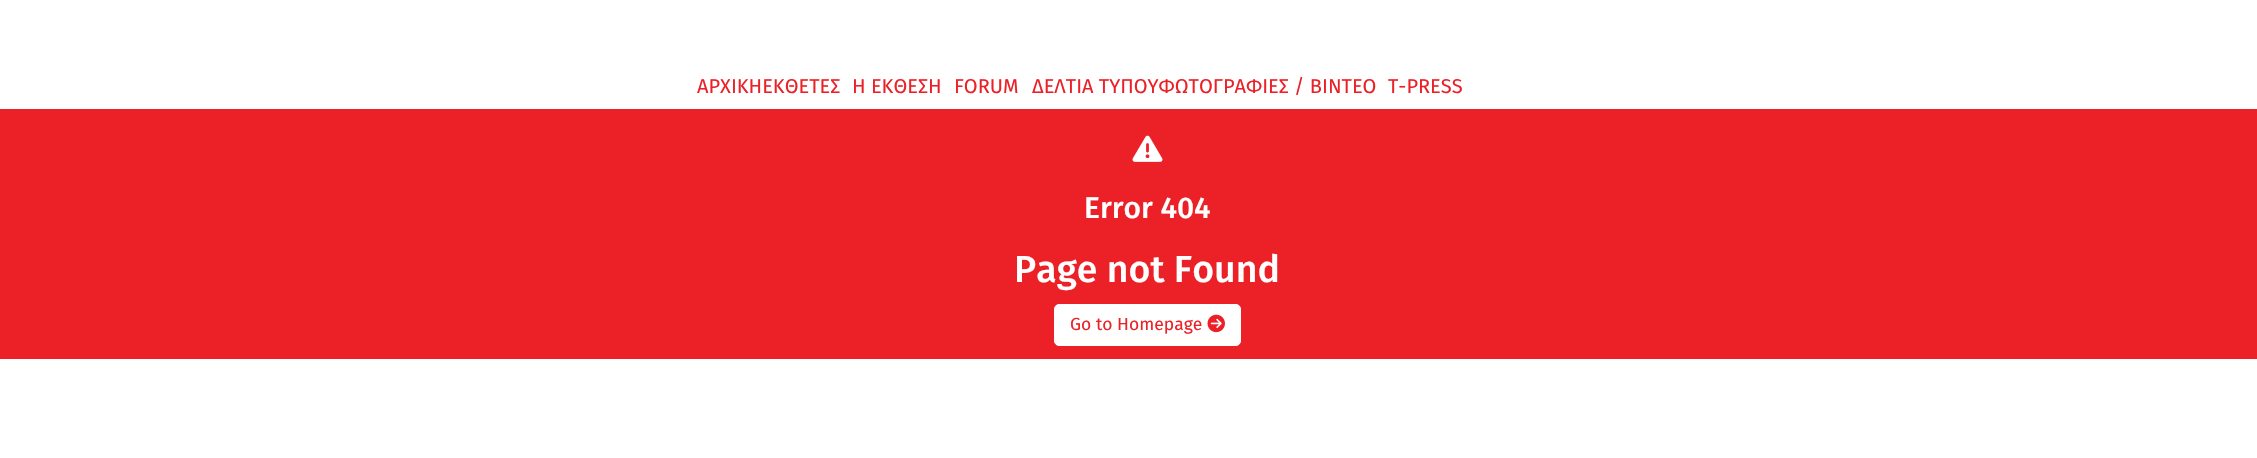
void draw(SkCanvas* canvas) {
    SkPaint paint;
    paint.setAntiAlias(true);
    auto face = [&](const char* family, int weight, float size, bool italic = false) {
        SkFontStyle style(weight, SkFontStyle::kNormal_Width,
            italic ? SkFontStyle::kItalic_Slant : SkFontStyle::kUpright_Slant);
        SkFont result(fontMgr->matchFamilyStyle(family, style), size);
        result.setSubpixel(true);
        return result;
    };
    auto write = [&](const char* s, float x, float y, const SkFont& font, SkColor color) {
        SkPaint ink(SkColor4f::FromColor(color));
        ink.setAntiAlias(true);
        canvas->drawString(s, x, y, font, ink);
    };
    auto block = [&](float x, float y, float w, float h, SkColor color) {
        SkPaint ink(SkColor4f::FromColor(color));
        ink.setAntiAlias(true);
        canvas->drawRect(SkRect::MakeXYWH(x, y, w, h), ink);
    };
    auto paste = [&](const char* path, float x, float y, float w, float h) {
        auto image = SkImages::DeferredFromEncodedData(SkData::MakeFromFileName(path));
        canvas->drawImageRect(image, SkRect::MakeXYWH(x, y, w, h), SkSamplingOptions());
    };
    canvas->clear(SK_ColorWHITE);
    auto kFont1 = face("Fira Sans", 400, 20);
    write("ΑΡΧΙΚΗΕΚΘΕΤΕΣ", 697, 93, kFont1, SkColorSetRGB(235, 33, 39));
    write("Η ΕΚΘΕΣΗ", 852, 93, kFont1, SkColorSetRGB(235, 33, 39));
    write("FORUM", 954, 93, kFont1, SkColorSetRGB(235, 33, 39));
    write("ΔΕΛΤΙΑ ΤΥΠΟΥΦΩΤΟΓΡΑΦΙΕΣ / ΒΙΝΤΕΟ", 1032, 93, kFont1, SkColorSetRGB(235, 33, 39));
    write("T-PRESS", 1388, 93, kFont1, SkColorSetRGB(235, 33, 39));
    block(0, 109, 2257, 250, SkColorSetRGB(235, 33, 39));
    paste("pic1.png", 1132, 135, 31, 27);
    auto kFont2 = face("Fira Sans", 500, 30);
    write("Error 404", 1084, 218, kFont2, SK_ColorWHITE);
    auto kFont3 = face("Fira Sans", 500, 37.5f);
    write("Page not Found", 1014, 282, kFont3, SK_ColorWHITE);
    paint.setColor(SK_ColorWHITE);
    canvas->drawRoundRect(SkRect::MakeXYWH(1054.5f, 304.5f, 186, 41), 4.5f, 4.5f, paint);
    paint.setStyle(SkPaint::kStroke_Style);
    paint.setStrokeWidth(1);
    canvas->drawRoundRect(SkRect::MakeXYWH(1054.5f, 304.5f, 186, 41), 4.5f, 4.5f, paint);
    auto kFont4 = face("Fira Sans", 400, 17.5f);
    write("Go to Homepage", 1070, 330, kFont4, SkColorSetRGB(235, 33, 39));
    paste("pic2.png", 1207, 314, 18, 19);
}
